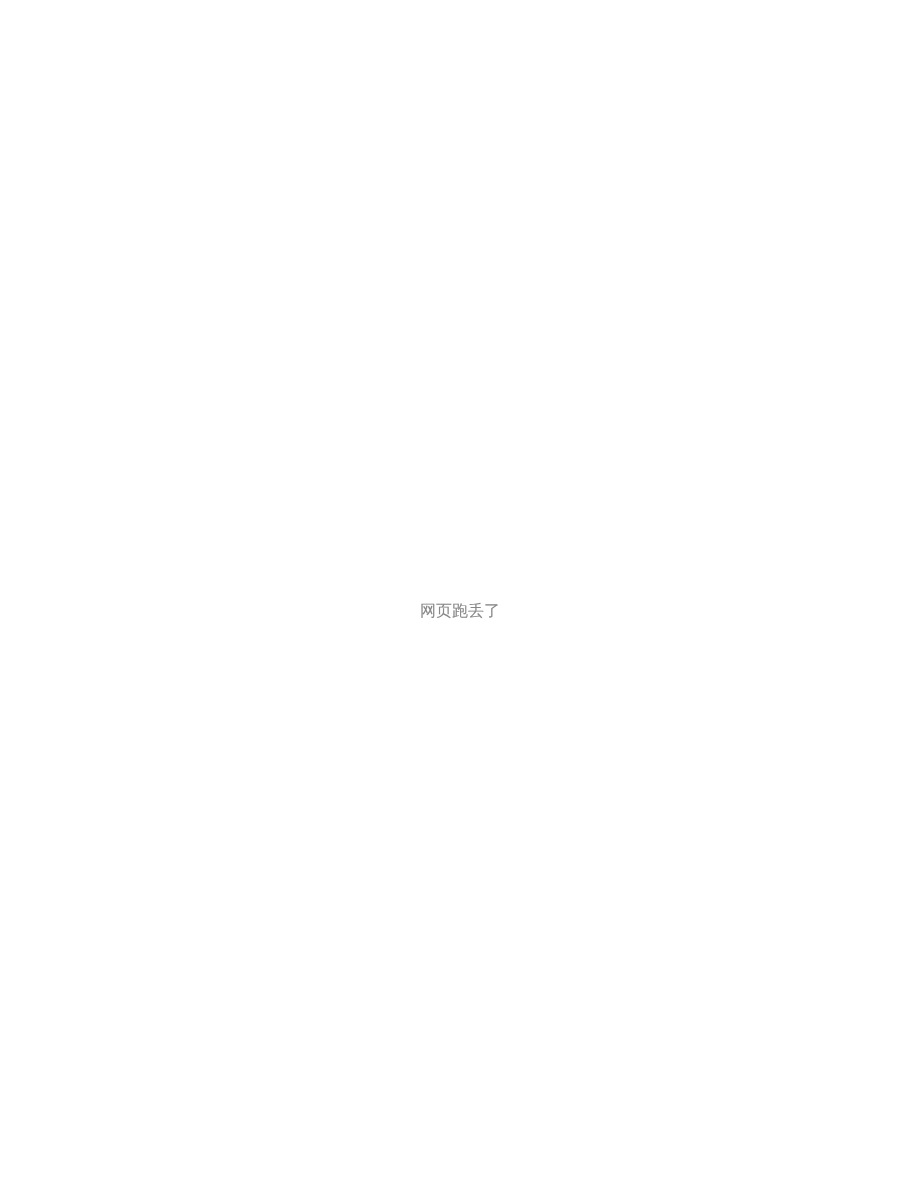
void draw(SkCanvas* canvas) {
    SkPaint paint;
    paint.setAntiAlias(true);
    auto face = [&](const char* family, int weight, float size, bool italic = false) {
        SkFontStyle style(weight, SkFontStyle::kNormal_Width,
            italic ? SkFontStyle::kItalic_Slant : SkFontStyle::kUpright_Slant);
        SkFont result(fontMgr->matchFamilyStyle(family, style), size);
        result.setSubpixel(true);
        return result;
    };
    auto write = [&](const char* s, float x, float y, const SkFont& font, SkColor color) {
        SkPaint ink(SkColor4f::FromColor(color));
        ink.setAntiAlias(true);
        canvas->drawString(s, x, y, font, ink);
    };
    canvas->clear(SK_ColorWHITE);
    auto kFont1 = face("WenQuanYi Zen Hei", 500, 16);
    write("网页跑丢了", 420, 616, kFont1, SkColorSetRGB(136, 136, 136));
}
